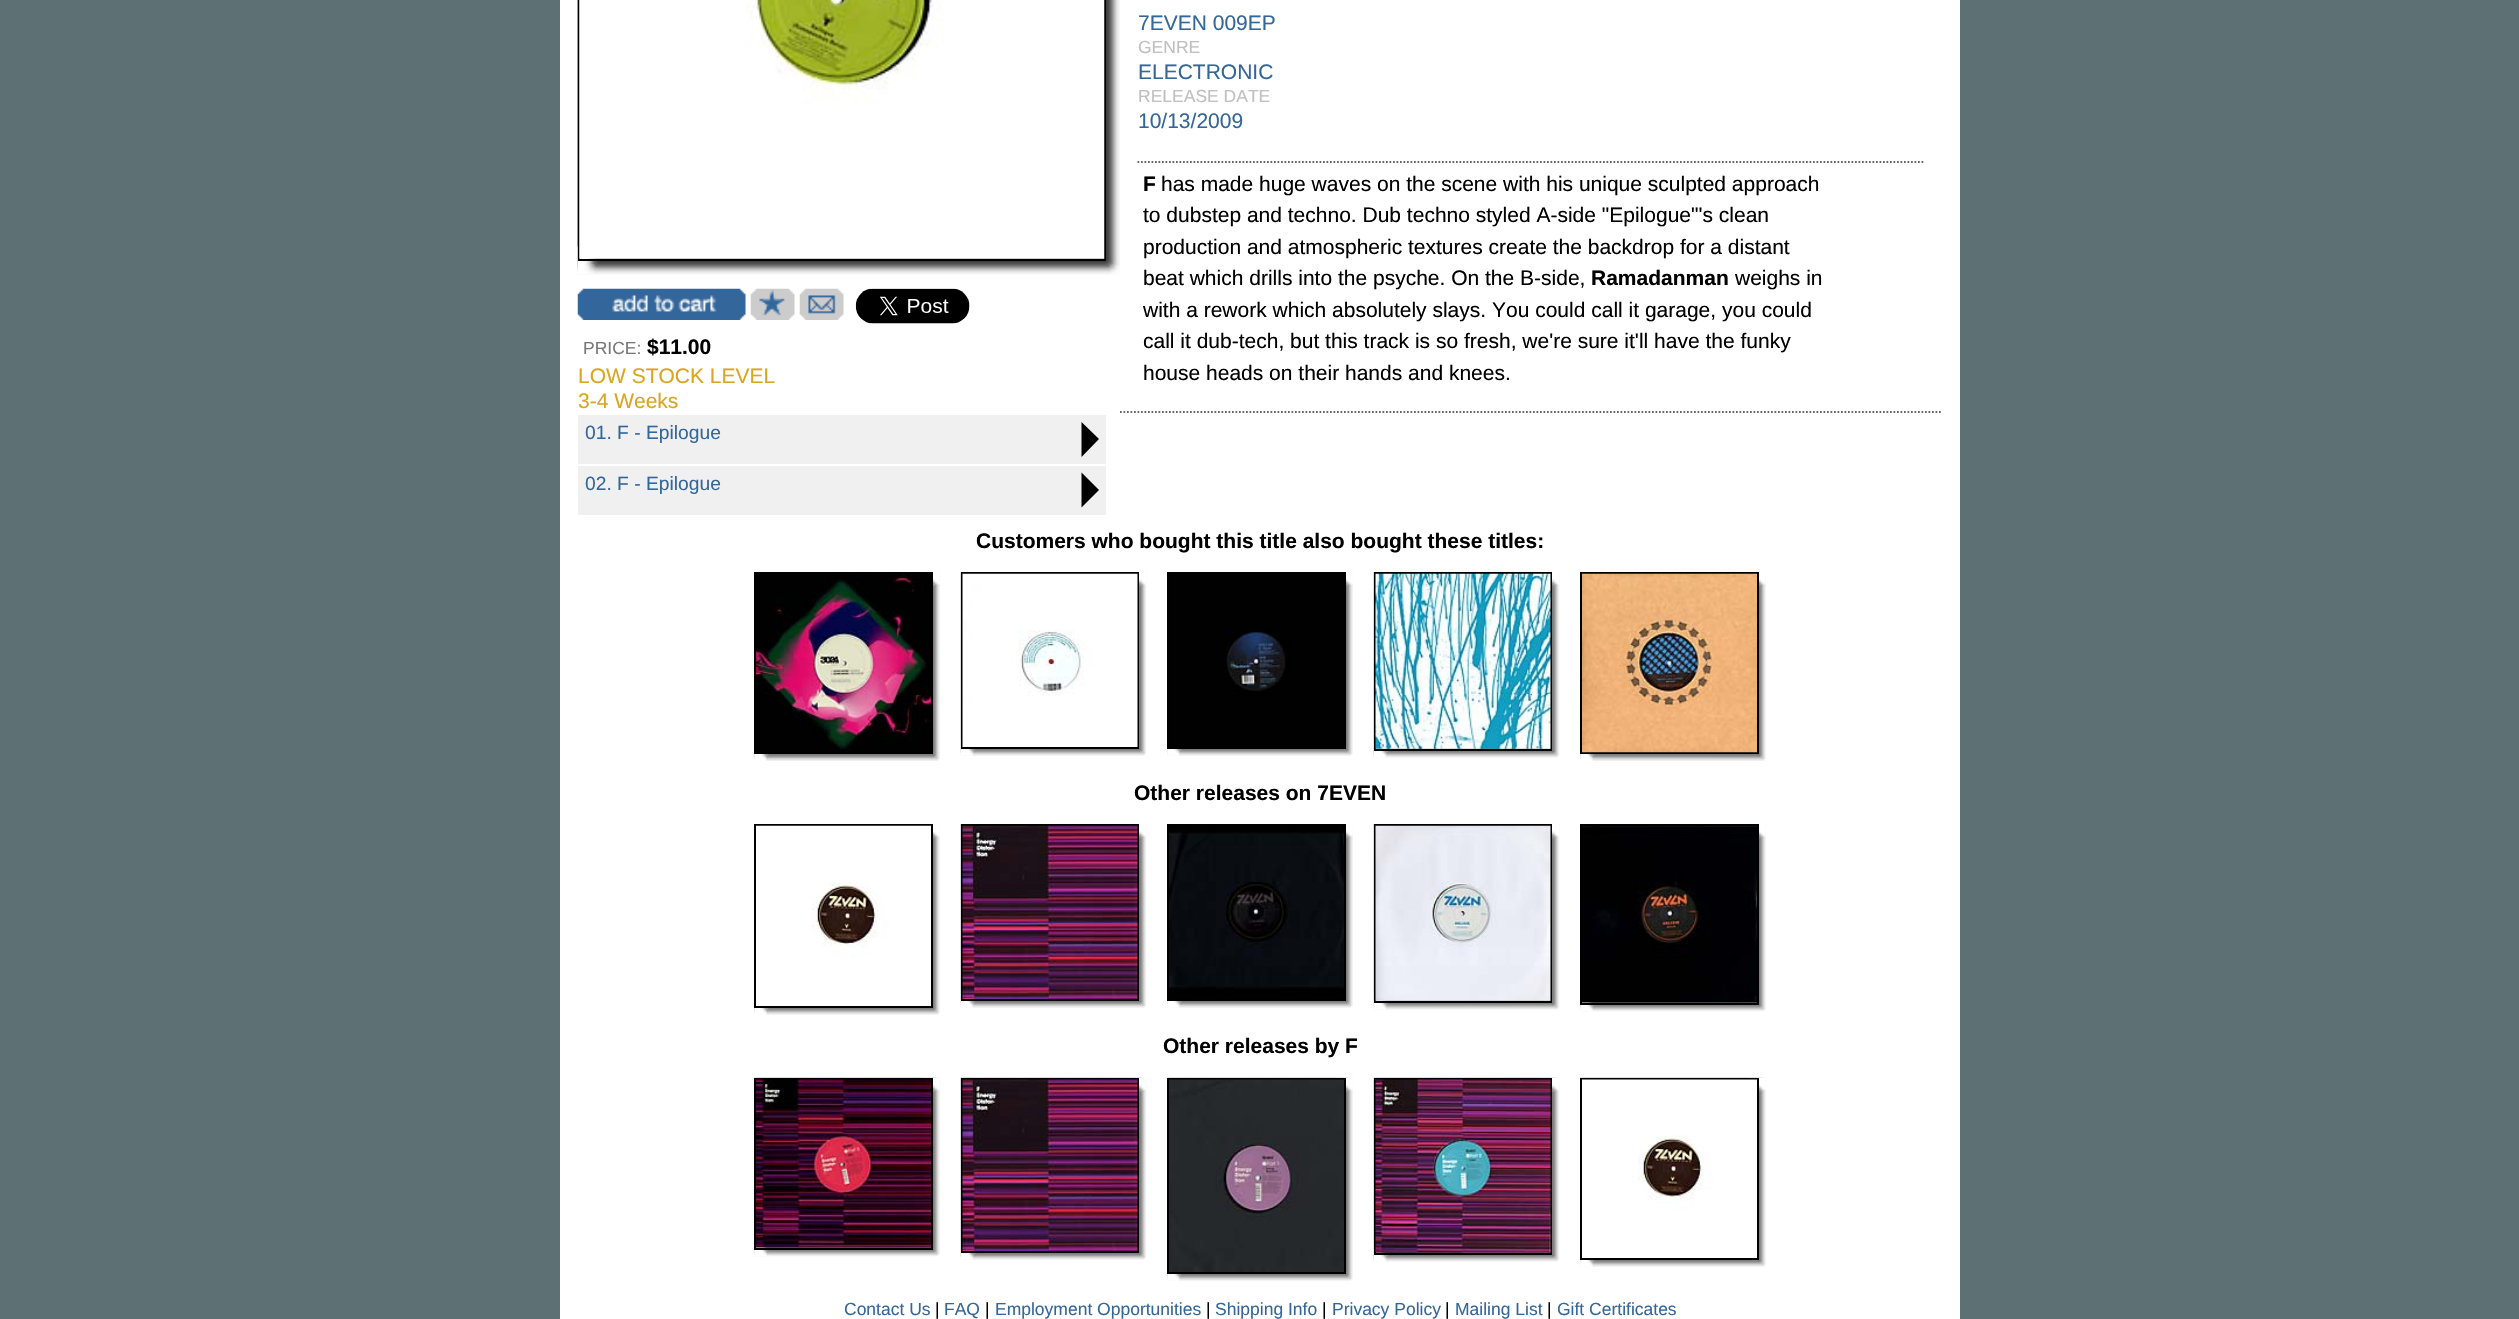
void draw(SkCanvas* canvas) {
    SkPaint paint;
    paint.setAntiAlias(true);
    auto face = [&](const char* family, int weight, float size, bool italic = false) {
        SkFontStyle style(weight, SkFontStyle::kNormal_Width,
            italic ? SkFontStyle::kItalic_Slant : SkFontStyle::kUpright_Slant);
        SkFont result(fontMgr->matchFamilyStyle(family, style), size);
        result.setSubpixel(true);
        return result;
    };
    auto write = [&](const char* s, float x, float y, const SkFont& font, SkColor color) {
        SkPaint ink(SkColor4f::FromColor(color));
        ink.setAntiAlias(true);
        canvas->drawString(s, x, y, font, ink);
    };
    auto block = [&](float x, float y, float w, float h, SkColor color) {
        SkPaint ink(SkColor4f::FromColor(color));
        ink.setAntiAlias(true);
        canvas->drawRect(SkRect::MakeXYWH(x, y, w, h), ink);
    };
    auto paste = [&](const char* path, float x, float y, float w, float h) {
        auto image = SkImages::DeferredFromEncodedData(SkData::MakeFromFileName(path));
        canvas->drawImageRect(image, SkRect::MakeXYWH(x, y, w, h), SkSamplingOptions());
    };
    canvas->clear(SkColorSetRGB(93, 112, 115));
    block(560, 0, 1400, 1319, SK_ColorWHITE);
    paint.setStyle(SkPaint::kStroke_Style);
    paint.setStrokeWidth(1.8f);
    paint.setColor(SkColorSetRGB(102, 102, 102));
    paint.setPathEffect(SkDashPathEffect::Make({{1.75f, 1.75f}}, 0));
    canvas->drawPath(SkPathBuilder().moveTo(1120, 412).lineTo(1942.5f, 412).detach(), paint);
    paint.setPathEffect(nullptr);
    auto kFont1 = face("Liberation Sans", 400, 21);
    write("7EVEN 009EP", 1138, 30, kFont1, SkColorSetRGB(51, 102, 153));
    auto kFont2 = face("Liberation Sans", 400, 17.5f);
    write("GENRE", 1138, 53, kFont2, SkColorSetRGB(192, 192, 192));
    write("ELECTRONIC", 1138, 79, kFont1, SkColorSetRGB(51, 102, 153));
    write("RELEASE DATE", 1138, 102, kFont2, SkColorSetRGB(192, 192, 192));
    write("10/13/2009", 1138, 128, kFont1, SkColorSetRGB(51, 102, 153));
    paint.setPathEffect(SkDashPathEffect::Make({{1.75f, 1.75f}}, 0));
    canvas->drawPath(SkPathBuilder().moveTo(1137.5f, 162).lineTo(1925, 162).detach(), paint);
    paint.setPathEffect(nullptr);
    auto kFont3 = face("Liberation Sans", 700, 21);
    write("F", 1143, 191, kFont3, SK_ColorBLACK);
    write("has made huge waves on the scene with his unique sculpted approach", 1161, 191, kFont1, SK_ColorBLACK);
    write("to dubstep and techno. Dub techno styled A-side \"Epilogue\"'s clean", 1143, 222, kFont1, SK_ColorBLACK);
    write("production and atmospheric textures create the backdrop for a distant", 1143, 254, kFont1, SK_ColorBLACK);
    write("beat which drills into the psyche. On the B-side,", 1143, 285, kFont1, SK_ColorBLACK);
    write("Ramadanman", 1591, 285, kFont3, SK_ColorBLACK);
    write("weighs in", 1735, 285, kFont1, SK_ColorBLACK);
    write("with a rework which absolutely slays. You could call it garage, you could", 1143, 317, kFont1, SK_ColorBLACK);
    write("call it dub-tech, but this track is so fresh, we're sure it'll have the funky", 1143, 348, kFont1, SK_ColorBLACK);
    write("house heads on their hands and knees.", 1143, 380, kFont1, SK_ColorBLACK);
    paste("pic1.png", 577, 0, 543, 275);
    paste("pic2.png", 577, 246, 22, 28);
    paint.setStrokeWidth(2);
    paint.setColor(SK_ColorBLACK);
    canvas->drawRect(SkRect::MakeXYWH(579, -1, 526, 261), paint);
    paste("pic3.png", 579, 0, 526, 259);
    paste("pic4.png", 577, 288, 169, 32);
    paste("pic5.png", 750, 288, 45, 32);
    paste("pic6.png", 799, 288, 45, 32);
    paste("pic7.png", 855, 288, 115, 36);
    write("PRICE:", 583, 354, kFont2, SkColorSetRGB(119, 119, 119));
    write("$11.00", 647, 354, kFont3, SK_ColorBLACK);
    write("LOW STOCK LEVEL", 578, 383, kFont1, SkColorSetRGB(218, 165, 32));
    write("3-4 Weeks", 578, 408, kFont1, SkColorSetRGB(218, 165, 32));
    block(578, 415, 528, 100, SkColorSetRGB(240, 240, 240));
    auto kFont4 = face("Liberation Sans", 400, 19.25f);
    write("01. F - Epilogue", 585, 439, kFont4, SkColorSetRGB(51, 102, 153));
    paint.setStyle(SkPaint::kFill_Style);
    canvas->drawPath(SkPathBuilder().moveTo(1081.5f, 457).lineTo(1081.5f, 422).lineTo(1099, 439).close().detach(), paint);
    block(578, 464, 528, 2, SK_ColorWHITE);
    write("02. F - Epilogue", 585, 490, kFont4, SkColorSetRGB(51, 102, 153));
    canvas->drawPath(SkPathBuilder().moveTo(1081.5f, 507.5f).lineTo(1081.5f, 472.5f).lineTo(1099, 490).close().detach(), paint);
    write("Customers who bought this title also bought these titles:", 976, 548, kFont3, SK_ColorBLACK);
    paste("pic8.png", 754, 572, 186, 189);
    paste("pic9.png", 754, 754, 15, 7);
    paste("pic10.png", 933, 572, 7, 15);
    paint.setStyle(SkPaint::kStroke_Style);
    canvas->drawRect(SkRect::MakeXYWH(755, 573, 177, 180), paint);
    paste("pic11.png", 756, 574, 175, 178);
    paste("pic12.png", 960, 572, 187, 184);
    paste("pic13.png", 960, 738, 15, 18);
    paste("pic14.png", 1139, 572, 7, 15);
    canvas->drawRect(SkRect::MakeXYWH(962, 573, 176, 175), paint);
    paste("pic15.png", 962, 573, 176, 174);
    paste("pic16.png", 1167, 572, 186, 184);
    paste("pic17.png", 1167, 749, 15, 7);
    paste("pic18.png", 1346, 572, 7, 15);
    canvas->drawRect(SkRect::MakeXYWH(1168, 573, 177, 175), paint);
    paste("pic19.png", 1169, 574, 175, 173);
    paste("pic20.png", 1373, 572, 187, 186);
    paste("pic21.png", 1373, 740, 15, 18);
    paste("pic14.png", 1552, 572, 7, 15);
    canvas->drawRect(SkRect::MakeXYWH(1375, 573, 176, 177), paint);
    paste("pic22.png", 1375, 573, 176, 176);
    paste("pic8.png", 1580, 572, 186, 189);
    paste("pic23.png", 1580, 754, 15, 7);
    paste("pic18.png", 1759, 572, 7, 15);
    canvas->drawRect(SkRect::MakeXYWH(1581, 573, 177, 180), paint);
    paste("pic24.png", 1582, 573, 175, 180);
    write("Other releases on 7EVEN", 1134, 800, kFont3, SK_ColorBLACK);
    paste("pic25.png", 754, 824, 186, 191);
    paste("pic17.png", 754, 1008, 15, 7);
    paste("pic10.png", 933, 824, 7, 15);
    canvas->drawRect(SkRect::MakeXYWH(755, 825, 177, 182), paint);
    paste("pic26.png", 756, 825, 175, 181);
    paste("pic12.png", 960, 824, 187, 184);
    paste("pic13.png", 960, 990, 15, 18);
    paste("pic14.png", 1139, 824, 7, 15);
    canvas->drawRect(SkRect::MakeXYWH(962, 825, 176, 175), paint);
    paste("pic27.png", 962, 825, 176, 174);
    paste("pic16.png", 1167, 824, 186, 184);
    paste("pic17.png", 1167, 1001, 15, 7);
    paste("pic18.png", 1346, 824, 7, 15);
    canvas->drawRect(SkRect::MakeXYWH(1168, 825, 177, 175), paint);
    paste("pic28.png", 1169, 826, 175, 173);
    paste("pic20.png", 1373, 824, 187, 186);
    paste("pic21.png", 1373, 992, 15, 18);
    paste("pic14.png", 1552, 824, 7, 15);
    canvas->drawRect(SkRect::MakeXYWH(1375, 825, 176, 177), paint);
    paste("pic29.png", 1375, 825, 176, 176);
    paste("pic30.png", 1580, 824, 186, 188);
    paste("pic31.png", 1580, 1002, 15, 9);
    paste("pic18.png", 1759, 824, 7, 15);
    canvas->drawRect(SkRect::MakeXYWH(1581, 825, 177, 179), paint);
    paste("pic32.png", 1582, 825, 175, 178);
    write("Other releases by F", 1163, 1053, kFont3, SK_ColorBLACK);
    paste("pic33.png", 754, 1077, 186, 180);
    paste("pic34.png", 754, 1247, 15, 9);
    paste("pic35.png", 922, 1077, 18, 15);
    canvas->drawRect(SkRect::MakeXYWH(755, 1079, 177, 170), paint);
    paste("pic36.png", 756, 1079, 175, 169);
    paste("pic37.png", 960, 1077, 187, 183);
    paste("pic38.png", 960, 1242, 15, 18);
    paste("pic39.png", 1128, 1077, 18, 15);
    canvas->drawRect(SkRect::MakeXYWH(962, 1079, 176, 173), paint);
    paste("pic40.png", 962, 1079, 176, 172);
    paste("pic41.png", 1167, 1077, 186, 204);
    paste("pic17.png", 1167, 1274, 15, 7);
    paste("pic42.png", 1335, 1077, 18, 15);
    canvas->drawRect(SkRect::MakeXYWH(1168, 1079, 177, 194), paint);
    paste("pic43.png", 1169, 1079, 175, 193);
    paste("pic44.png", 1373, 1077, 187, 185);
    paste("pic45.png", 1373, 1244, 16, 18);
    paste("pic39.png", 1541, 1077, 18, 15);
    canvas->drawRect(SkRect::MakeXYWH(1375, 1079, 176, 175), paint);
    paste("pic46.png", 1375, 1079, 176, 174);
    paste("pic47.png", 1580, 1077, 186, 190);
    paste("pic48.png", 1580, 1260, 15, 7);
    paste("pic42.png", 1748, 1077, 18, 15);
    canvas->drawRect(SkRect::MakeXYWH(1581, 1079, 177, 180), paint);
    paste("pic49.png", 1582, 1079, 175, 179);
    write("Contact Us", 844, 1315, kFont2, SkColorSetRGB(51, 102, 153));
    write("|", 935, 1315, kFont2, SK_ColorBLACK);
    write("FAQ", 944, 1315, kFont2, SkColorSetRGB(51, 102, 153));
    write("|", 985, 1315, kFont2, SK_ColorBLACK);
    write("Employment Opportunities", 995, 1315, kFont2, SkColorSetRGB(51, 102, 153));
    write("|", 1206, 1315, kFont2, SK_ColorBLACK);
    write("Shipping Info", 1215, 1315, kFont2, SkColorSetRGB(51, 102, 153));
    write("|", 1322, 1315, kFont2, SK_ColorBLACK);
    write("Privacy Policy", 1332, 1315, kFont2, SkColorSetRGB(51, 102, 153));
    write("|", 1445, 1315, kFont2, SK_ColorBLACK);
    write("Mailing List", 1455, 1315, kFont2, SkColorSetRGB(51, 102, 153));
    write("|", 1547, 1315, kFont2, SK_ColorBLACK);
    write("Gift Certificates", 1557, 1315, kFont2, SkColorSetRGB(51, 102, 153));
}
